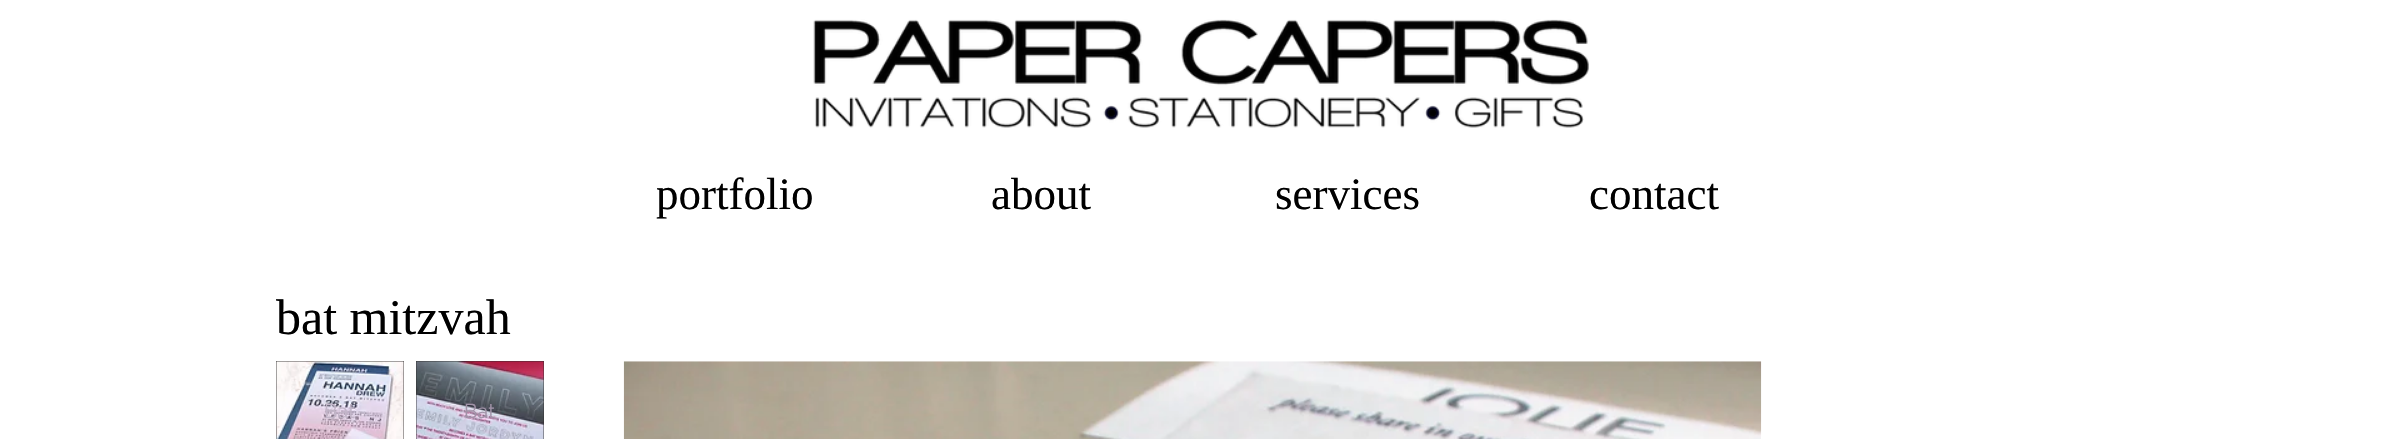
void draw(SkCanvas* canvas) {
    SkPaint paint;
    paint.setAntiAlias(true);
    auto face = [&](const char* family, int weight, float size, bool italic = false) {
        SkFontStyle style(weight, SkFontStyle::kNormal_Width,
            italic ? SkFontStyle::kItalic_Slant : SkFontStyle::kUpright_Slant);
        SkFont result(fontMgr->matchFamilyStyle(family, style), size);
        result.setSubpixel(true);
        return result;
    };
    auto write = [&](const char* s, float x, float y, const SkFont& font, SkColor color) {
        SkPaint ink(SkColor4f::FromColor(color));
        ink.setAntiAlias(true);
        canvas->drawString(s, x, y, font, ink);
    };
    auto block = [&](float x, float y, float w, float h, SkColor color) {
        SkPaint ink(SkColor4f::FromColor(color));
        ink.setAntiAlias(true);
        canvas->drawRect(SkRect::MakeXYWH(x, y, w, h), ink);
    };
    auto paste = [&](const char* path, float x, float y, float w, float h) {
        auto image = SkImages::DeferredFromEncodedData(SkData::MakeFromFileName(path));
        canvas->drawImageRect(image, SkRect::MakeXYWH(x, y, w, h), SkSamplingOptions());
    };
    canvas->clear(SK_ColorWHITE);
    paste("pic1.png", 813, 19, 776, 109);
    auto kFont1 = face("Liberation Serif", 400, 45);
    write("portfolio", 656, 209, kFont1, SK_ColorBLACK);
    write("about", 991, 209, kFont1, SK_ColorBLACK);
    write("services", 1275, 209, kFont1, SK_ColorBLACK);
    write("contact", 1589, 209, kFont1, SK_ColorBLACK);
    auto kFont2 = face("Liberation Serif", 400, 50);
    write("bat mitzvah", 276, 334, kFont2, SK_ColorBLACK);
    block(276, 361, 128, 78, SkColorSetRGB(47, 46, 46));
    paste("pic2.png", 276, 361, 128, 78);
    auto kFont3 = face("Raleway", 400, 20);
    write("Bat", 324, 418, kFont3, SkColorSetRGB(193, 181, 200));
    block(416, 361, 128, 78, SkColorSetRGB(47, 46, 46));
    paste("pic3.png", 416, 361, 128, 78);
    write("Bat", 464, 418, kFont3, SkColorSetRGB(160, 146, 167));
    paste("pic4.png", 623, 361, 1139, 78);
}
